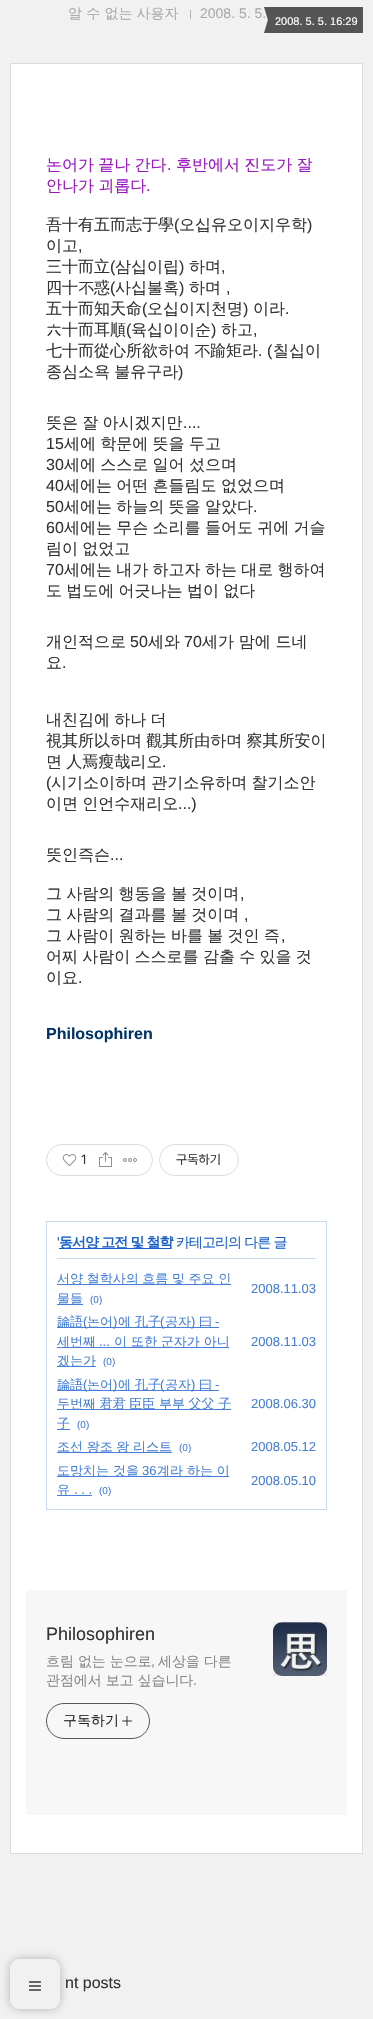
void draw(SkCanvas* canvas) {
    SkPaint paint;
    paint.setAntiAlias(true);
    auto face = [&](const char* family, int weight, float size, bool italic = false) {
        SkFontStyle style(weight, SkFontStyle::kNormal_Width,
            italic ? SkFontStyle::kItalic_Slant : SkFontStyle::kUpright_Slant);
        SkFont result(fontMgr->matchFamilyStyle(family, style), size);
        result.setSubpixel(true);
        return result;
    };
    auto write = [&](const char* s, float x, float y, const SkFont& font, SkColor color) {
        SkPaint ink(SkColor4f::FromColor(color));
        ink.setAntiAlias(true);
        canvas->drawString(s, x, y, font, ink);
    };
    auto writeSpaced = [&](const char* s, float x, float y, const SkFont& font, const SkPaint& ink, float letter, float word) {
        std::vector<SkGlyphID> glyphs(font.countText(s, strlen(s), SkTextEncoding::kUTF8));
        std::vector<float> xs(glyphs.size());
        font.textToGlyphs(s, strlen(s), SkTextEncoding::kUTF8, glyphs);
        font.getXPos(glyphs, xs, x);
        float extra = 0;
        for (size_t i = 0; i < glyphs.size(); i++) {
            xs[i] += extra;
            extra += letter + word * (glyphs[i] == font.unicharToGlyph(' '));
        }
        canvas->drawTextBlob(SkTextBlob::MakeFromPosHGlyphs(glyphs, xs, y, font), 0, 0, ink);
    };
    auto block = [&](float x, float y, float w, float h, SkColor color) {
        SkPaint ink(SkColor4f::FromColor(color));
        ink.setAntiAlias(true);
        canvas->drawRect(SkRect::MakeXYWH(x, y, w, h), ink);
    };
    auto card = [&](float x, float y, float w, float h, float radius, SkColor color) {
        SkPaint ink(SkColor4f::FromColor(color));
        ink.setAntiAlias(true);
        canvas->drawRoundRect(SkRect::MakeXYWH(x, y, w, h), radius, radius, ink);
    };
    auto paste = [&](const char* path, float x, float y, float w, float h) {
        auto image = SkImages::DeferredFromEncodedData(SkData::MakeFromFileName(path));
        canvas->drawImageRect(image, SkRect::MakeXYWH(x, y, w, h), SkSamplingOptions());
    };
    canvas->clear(SkColorSetRGB(241, 241, 241));
    canvas->save();
    canvas->clipPath(SkPathBuilder(SkPathFillType::kEvenOdd).moveTo(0, 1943).lineTo(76, 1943).lineTo(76, 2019).lineTo(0, 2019).close().moveTo(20, 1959).lineTo(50, 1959).cubicTo(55.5f, 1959, 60, 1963.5f, 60, 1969).lineTo(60, 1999).cubicTo(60, 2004.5f, 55.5f, 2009, 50, 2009).lineTo(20, 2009).cubicTo(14.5f, 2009, 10, 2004.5f, 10, 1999).lineTo(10, 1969).cubicTo(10, 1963.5f, 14.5f, 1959, 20, 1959).close().detach(), true);
    paint.setColor(SkColorSetARGB(230, 170, 170, 170));
    paint.setMaskFilter(SkMaskFilter::MakeBlur(kNormal_SkBlurStyle, 5));
    canvas->drawRoundRect(SkRect::MakeXYWH(10, 1959, 50, 50), 10, 10, paint);
    paint.setMaskFilter(nullptr);
    canvas->restore();
    card(10, 1959, 50, 50, 10, SkColorSetARGB(230, 241, 241, 241));
    paste("pic1.png", 29, 1981, 12, 10);
    auto kFont1 = face("WenQuanYi Zen Hei", 500, 14);
    write("알 수 없는 사용자", 68, 18, kFont1, SkColorSetRGB(170, 170, 170));
    block(190, 10, 1, 9, SkColorSetRGB(179, 179, 179));
    auto kFont2 = face("Liberation Sans", 400, 14);
    write("2008. 5. 5.", 200, 18, kFont2, SkColorSetRGB(170, 170, 170));
    block(270, 7, 93, 26, SkColorSetRGB(85, 85, 85));
    paint.setColor(SkColorSetRGB(85, 85, 85));
    canvas->drawPath(SkPathBuilder().moveTo(264, 7).lineTo(270, 7).lineTo(270, 27).close().detach(), paint);
    canvas->drawPath(SkPathBuilder().moveTo(270, 33).lineTo(264, 33).lineTo(270, 13).close().detach(), paint);
    auto kFont3 = face("Liberation Sans", 400, 11);
    write("2008. 5. 5. 16:29", 275, 25, kFont3, SK_ColorWHITE);
    paint.setColor(SK_ColorWHITE);
    canvas->drawRect(SkRect::MakeXYWH(10.5f, 63.5f, 352, 1790), paint);
    paint.setStyle(SkPaint::kStroke_Style);
    paint.setStrokeWidth(1);
    paint.setColor(SkColorSetRGB(221, 221, 221));
    canvas->drawRect(SkRect::MakeXYWH(10.5f, 63.5f, 352, 1790), paint);
    auto kFont4 = face("WenQuanYi Zen Hei", 500, 16);
    paint.setStyle(SkPaint::kFill_Style);
    paint.setColor(SkColorSetRGB(155, 24, 193));
    writeSpaced("논어가 끝나 간다", 46, 170, kFont4, paint, 0, -0.5f);
    auto kFont5 = face("Liberation Sans", 400, 16);
    write(".", 167, 170, kFont5, SkColorSetRGB(155, 24, 193));
    writeSpaced("후반에서 진도가 잘", 176, 170, kFont4, paint, 0, -0.5f);
    writeSpaced("안나가 괴롭다", 46, 191, kFont4, paint, 0, -0.5f);
    write(".", 146, 191, kFont5, SkColorSetRGB(155, 24, 193));
    write("吾十有五而志于學", 46, 230, kFont4, SkColorSetRGB(51, 51, 51));
    write("(", 174, 230, kFont5, SkColorSetRGB(51, 51, 51));
    write("오십유오이지우학", 179, 230, kFont4, SkColorSetRGB(51, 51, 51));
    write(")", 307, 230, kFont5, SkColorSetRGB(51, 51, 51));
    write("이고", 46, 251, kFont4, SkColorSetRGB(51, 51, 51));
    write(",", 78, 251, kFont5, SkColorSetRGB(51, 51, 51));
    write("三十而立", 46, 272, kFont4, SkColorSetRGB(51, 51, 51));
    write("(", 110, 272, kFont5, SkColorSetRGB(51, 51, 51));
    write("삼십이립", 115, 272, kFont4, SkColorSetRGB(51, 51, 51));
    write(")", 179, 272, kFont5, SkColorSetRGB(51, 51, 51));
    write("하며", 189, 272, kFont4, SkColorSetRGB(51, 51, 51));
    write(",", 221, 272, kFont5, SkColorSetRGB(51, 51, 51));
    write("四十不惑", 46, 293, kFont4, SkColorSetRGB(51, 51, 51));
    write("(", 110, 293, kFont5, SkColorSetRGB(51, 51, 51));
    write("사십불혹", 115, 293, kFont4, SkColorSetRGB(51, 51, 51));
    write(")", 179, 293, kFont5, SkColorSetRGB(51, 51, 51));
    write("하며", 189, 293, kFont4, SkColorSetRGB(51, 51, 51));
    write(",", 226, 293, kFont5, SkColorSetRGB(51, 51, 51));
    write("五十而知天命", 46, 314, kFont4, SkColorSetRGB(51, 51, 51));
    write("(", 142, 314, kFont5, SkColorSetRGB(51, 51, 51));
    write("오십이지천명", 147, 314, kFont4, SkColorSetRGB(51, 51, 51));
    write(")", 243, 314, kFont5, SkColorSetRGB(51, 51, 51));
    write("이라", 253, 314, kFont4, SkColorSetRGB(51, 51, 51));
    write(".", 285, 314, kFont5, SkColorSetRGB(51, 51, 51));
    write("六十而耳順", 46, 335, kFont4, SkColorSetRGB(51, 51, 51));
    write("(", 126, 335, kFont5, SkColorSetRGB(51, 51, 51));
    write("육십이이순", 131, 335, kFont4, SkColorSetRGB(51, 51, 51));
    write(")", 211, 335, kFont5, SkColorSetRGB(51, 51, 51));
    write("하고", 221, 335, kFont4, SkColorSetRGB(51, 51, 51));
    write(",", 253, 335, kFont5, SkColorSetRGB(51, 51, 51));
    write("七十而從心所欲하여", 46, 356, kFont4, SkColorSetRGB(51, 51, 51));
    write("不踰矩라", 194, 356, kFont4, SkColorSetRGB(51, 51, 51));
    write(". (", 258, 356, kFont5, SkColorSetRGB(51, 51, 51));
    write("칠십이", 273, 356, kFont4, SkColorSetRGB(51, 51, 51));
    paint.setColor(SkColorSetRGB(51, 51, 51));
    writeSpaced("종심소욕 불유구라", 46, 377, kFont4, paint, 0, -0.5f);
    write(")", 178, 377, kFont5, SkColorSetRGB(51, 51, 51));
    writeSpaced("뜻은 잘 아시겠지만", 46, 428, kFont4, paint, 0, -0.5f);
    write("....", 183, 428, kFont5, SkColorSetRGB(51, 51, 51));
    write("15", 46, 449, kFont5, SkColorSetRGB(51, 51, 51));
    writeSpaced("세에 학문에 뜻을 두고", 64, 449, kFont4, paint, 0, -0.5f);
    write("30", 46, 470, kFont5, SkColorSetRGB(51, 51, 51));
    writeSpaced("세에 스스로 일어 섰으며", 64, 470, kFont4, paint, 0, -0.5f);
    write("40", 46, 491, kFont5, SkColorSetRGB(51, 51, 51));
    writeSpaced("세에는 어떤 흔들림도 없었으며", 64, 491, kFont4, paint, 0, -0.5f);
    write("50", 46, 512, kFont5, SkColorSetRGB(51, 51, 51));
    writeSpaced("세에는 하늘의 뜻을 알았다", 64, 512, kFont4, paint, 0, -0.5f);
    write(".", 253, 512, kFont5, SkColorSetRGB(51, 51, 51));
    write("60", 46, 533, kFont5, SkColorSetRGB(51, 51, 51));
    writeSpaced("세에는 무슨 소리를 들어도 귀에 거슬", 64, 533, kFont4, paint, 0, -0.5f);
    writeSpaced("림이 없었고", 46, 554, kFont4, paint, 0, -0.5f);
    write("70", 46, 575, kFont5, SkColorSetRGB(51, 51, 51));
    writeSpaced("세에는 내가 하고자 하는 대로 행하여", 64, 575, kFont4, paint, 0, -0.5f);
    writeSpaced("도 법도에 어긋나는 법이 없다", 46, 596, kFont4, paint, 0, -0.5f);
    write("개인적으로", 46, 647, kFont4, SkColorSetRGB(51, 51, 51));
    write("50", 130, 647, kFont5, SkColorSetRGB(51, 51, 51));
    write("세와", 148, 647, kFont4, SkColorSetRGB(51, 51, 51));
    write("70", 184, 647, kFont5, SkColorSetRGB(51, 51, 51));
    write("세가 맘에 드네", 202, 647, kFont4, SkColorSetRGB(51, 51, 51));
    write("요", 46, 668, kFont4, SkColorSetRGB(51, 51, 51));
    write(".", 62, 668, kFont5, SkColorSetRGB(51, 51, 51));
    writeSpaced("내친김에 하나 더", 46, 725, kFont4, paint, 0, -0.5f);
    writeSpaced("視其所以하며 觀其所由하며 察其所安이", 46, 746, kFont4, paint, 0, -0.5f);
    writeSpaced("면 人焉瘦哉리오", 46, 767, kFont4, paint, 0, -0.5f);
    write(".", 162, 767, kFont5, SkColorSetRGB(51, 51, 51));
    write("(", 46, 788, kFont5, SkColorSetRGB(51, 51, 51));
    writeSpaced("시기소이하며 관기소유하며 찰기소안", 51, 788, kFont4, paint, 0, -0.5f);
    writeSpaced("이면 인언수재리오", 46, 809, kFont4, paint, 0, -0.5f);
    write("...)", 178, 809, kFont5, SkColorSetRGB(51, 51, 51));
    write("뜻인즉슨", 46, 860, kFont4, SkColorSetRGB(51, 51, 51));
    write("...", 110, 860, kFont5, SkColorSetRGB(51, 51, 51));
    writeSpaced("그 사람의 행동을 볼 것이며", 46, 899, kFont4, paint, 0, -0.5f);
    write(",", 240, 899, kFont5, SkColorSetRGB(51, 51, 51));
    writeSpaced("그 사람의 결과를 볼 것이며", 46, 920, kFont4, paint, 0, -0.5f);
    write(",", 244, 920, kFont5, SkColorSetRGB(51, 51, 51));
    writeSpaced("그 사람이 원하는 바를 볼 것인 즉", 46, 941, kFont4, paint, 0, -0.5f);
    write(",", 281, 941, kFont5, SkColorSetRGB(51, 51, 51));
    writeSpaced("어찌 사람이 스스로를 감출 수 있을 것", 46, 962, kFont4, paint, 0, -0.5f);
    write("이요", 46, 983, kFont4, SkColorSetRGB(51, 51, 51));
    write(".", 78, 983, kFont5, SkColorSetRGB(51, 51, 51));
    auto kFont6 = face("Liberation Sans", 700, 16);
    write("Philosophiren", 46, 1039, kFont6, SkColorSetRGB(0, 51, 102));
    paint.setStyle(SkPaint::kStroke_Style);
    paint.setColor(SkColorSetRGB(220, 220, 220));
    canvas->drawRoundRect(SkRect::MakeXYWH(46.5f, 1144.5f, 106, 31), 15.5f, 15.5f, paint);
    paste("pic2.png", 62, 1154, 15, 12);
    auto kFont7 = face("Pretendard", 400, 13);
    write("1", 81, 1164, kFont7, SkColorSetRGB(51, 51, 51));
    paste("pic3.png", 99, 1152, 13, 15);
    paste("pic4.png", 123, 1158, 14, 4);
    canvas->drawRoundRect(SkRect::MakeXYWH(159.5f, 1144.5f, 79, 31), 15.5f, 15.5f, paint);
    write("구독하기", 176, 1164, kFont7, SkColorSetRGB(51, 51, 51));
    paint.setColor(SkColorSetRGB(200, 218, 242));
    canvas->drawRect(SkRect::MakeXYWH(46.5f, 1221.5f, 280, 288), paint);
    block(57, 1258, 259, 1, SkColorSetRGB(200, 218, 242));
    paint.setStyle(SkPaint::kFill_Style);
    paint.setColor(SkColorSetRGB(25, 96, 202));
    writeSpaced("'", 57, 1247, kFont2, paint, -1, 0);
    block(59, 1248, 112, 1, SkColorSetRGB(25, 96, 202));
    auto kFont8 = face("WenQuanYi Zen Hei", 700, 14);
    writeSpaced("동서양 고전 및 철학", 59, 1247, kFont8, paint, -1, 0);
    writeSpaced("'", 171, 1247, kFont2, paint, -1, 0);
    writeSpaced("카테고리의 다른 글", 176, 1247, kFont1, paint, -1, 0);
    block(57, 1284, 174, 1, SkColorSetRGB(71, 127, 214));
    auto kFont9 = face("WenQuanYi Zen Hei", 500, 13);
    paint.setColor(SkColorSetRGB(71, 127, 214));
    writeSpaced("서양 철학사의 흐름 및 주요 인", 57, 1283, kFont9, paint, 0, -0.25f);
    block(57, 1304, 26, 1, SkColorSetRGB(71, 127, 214));
    write("물들", 57, 1303, kFont9, SkColorSetRGB(71, 127, 214));
    auto kFont10 = face("Liberation Sans", 400, 10);
    write("(0)", 90, 1303, kFont10, SkColorSetRGB(71, 127, 214));
    auto kFont11 = face("Liberation Sans", 400, 13);
    write("2008.11.03", 251, 1293, kFont11, SkColorSetRGB(71, 127, 214));
    block(57, 1327, 162, 1, SkColorSetRGB(71, 127, 214));
    write("論語", 57, 1326, kFont9, SkColorSetRGB(71, 127, 214));
    write("(", 83, 1326, kFont11, SkColorSetRGB(71, 127, 214));
    write("논어", 87, 1326, kFont9, SkColorSetRGB(71, 127, 214));
    write(")", 113, 1326, kFont11, SkColorSetRGB(71, 127, 214));
    write("에 孔子", 118, 1326, kFont9, SkColorSetRGB(71, 127, 214));
    write("(", 160, 1326, kFont11, SkColorSetRGB(71, 127, 214));
    write("공자", 165, 1326, kFont9, SkColorSetRGB(71, 127, 214));
    write(")", 191, 1326, kFont11, SkColorSetRGB(71, 127, 214));
    write("曰", 199, 1326, kFont9, SkColorSetRGB(71, 127, 214));
    write("-", 215, 1326, kFont11, SkColorSetRGB(71, 127, 214));
    block(57, 1347, 172, 1, SkColorSetRGB(71, 127, 214));
    write("세번째", 57, 1346, kFont9, SkColorSetRGB(71, 127, 214));
    write("...", 99, 1346, kFont11, SkColorSetRGB(71, 127, 214));
    write("이 또한 군자가 아니", 114, 1346, kFont9, SkColorSetRGB(71, 127, 214));
    block(57, 1366, 39, 1, SkColorSetRGB(71, 127, 214));
    write("겠는가", 57, 1365, kFont9, SkColorSetRGB(71, 127, 214));
    write("(0)", 103, 1365, kFont10, SkColorSetRGB(71, 127, 214));
    write("2008.11.03", 251, 1346, kFont11, SkColorSetRGB(71, 127, 214));
    block(57, 1390, 162, 1, SkColorSetRGB(71, 127, 214));
    write("論語", 57, 1389, kFont9, SkColorSetRGB(71, 127, 214));
    write("(", 83, 1389, kFont11, SkColorSetRGB(71, 127, 214));
    write("논어", 87, 1389, kFont9, SkColorSetRGB(71, 127, 214));
    write(")", 113, 1389, kFont11, SkColorSetRGB(71, 127, 214));
    write("에 孔子", 118, 1389, kFont9, SkColorSetRGB(71, 127, 214));
    write("(", 160, 1389, kFont11, SkColorSetRGB(71, 127, 214));
    write("공자", 165, 1389, kFont9, SkColorSetRGB(71, 127, 214));
    write(")", 191, 1389, kFont11, SkColorSetRGB(71, 127, 214));
    write("曰", 199, 1389, kFont9, SkColorSetRGB(71, 127, 214));
    write("-", 215, 1389, kFont11, SkColorSetRGB(71, 127, 214));
    block(57, 1409, 174, 1, SkColorSetRGB(71, 127, 214));
    writeSpaced("두번째 君君 臣臣 부부 父父 子", 57, 1408, kFont9, paint, 0, -0.25f);
    block(57, 1429, 13, 1, SkColorSetRGB(71, 127, 214));
    write("子", 57, 1428, kFont9, SkColorSetRGB(71, 127, 214));
    write("(0)", 77, 1428, kFont10, SkColorSetRGB(71, 127, 214));
    write("2008.06.30", 251, 1408, kFont11, SkColorSetRGB(71, 127, 214));
    block(57, 1452, 115, 1, SkColorSetRGB(71, 127, 214));
    writeSpaced("조선 왕조 왕 리스트", 57, 1451, kFont9, paint, 0, -0.25f);
    write("(0)", 179, 1451, kFont10, SkColorSetRGB(71, 127, 214));
    write("2008.05.12", 251, 1451, kFont11, SkColorSetRGB(71, 127, 214));
    block(57, 1476, 172, 1, SkColorSetRGB(71, 127, 214));
    write("도망치는 것을", 57, 1475, kFont9, SkColorSetRGB(71, 127, 214));
    write("36", 142, 1475, kFont11, SkColorSetRGB(71, 127, 214));
    write("계라 하는 이", 157, 1475, kFont9, SkColorSetRGB(71, 127, 214));
    block(57, 1495, 35, 1, SkColorSetRGB(71, 127, 214));
    write("유", 57, 1494, kFont9, SkColorSetRGB(71, 127, 214));
    write(". . .", 74, 1494, kFont11, SkColorSetRGB(71, 127, 214));
    write("(0)", 99, 1494, kFont10, SkColorSetRGB(71, 127, 214));
    write("2008.05.10", 251, 1485, kFont11, SkColorSetRGB(71, 127, 214));
    block(26, 1590, 321, 225, SkColorSetRGB(247, 247, 247));
    auto kFont12 = face("Liberation Sans", 400, 18);
    write("Philosophiren", 46, 1640, kFont12, SkColorSetRGB(51, 51, 51));
    paint.setColor(SkColorSetRGB(136, 136, 136));
    writeSpaced("흐림 없는 눈으로", 46, 1666, kFont1, paint, -0.1f, 0);
    writeSpaced(",", 151, 1666, kFont2, paint, -0.1f, 0);
    writeSpaced("세상을 다른", 158, 1666, kFont1, paint, -0.1f, 0);
    writeSpaced("관점에서 보고 싶습니다", 46, 1685, kFont1, paint, -0.1f, 0);
    writeSpaced(".", 193, 1685, kFont2, paint, -0.1f, 0);
    paint.setStyle(SkPaint::kStroke_Style);
    paint.setColor(SkColorSetRGB(85, 85, 85));
    canvas->drawRoundRect(SkRect::MakeXYWH(46.5f, 1703.5f, 103, 35), 17.5f, 17.5f, paint);
    write("구독하기", 63, 1725, kFont1, SkColorSetRGB(34, 34, 34));
    paste("pic5.png", 122, 1716, 10, 10);
    paste("pic6.png", 273, 1622, 54, 54);
    block(273, 1622, 54, 54, SkColorSetARGB(10, 0, 0, 0));
    write("nt posts", 65, 1988, kFont5, SkColorSetRGB(51, 51, 51));
}
